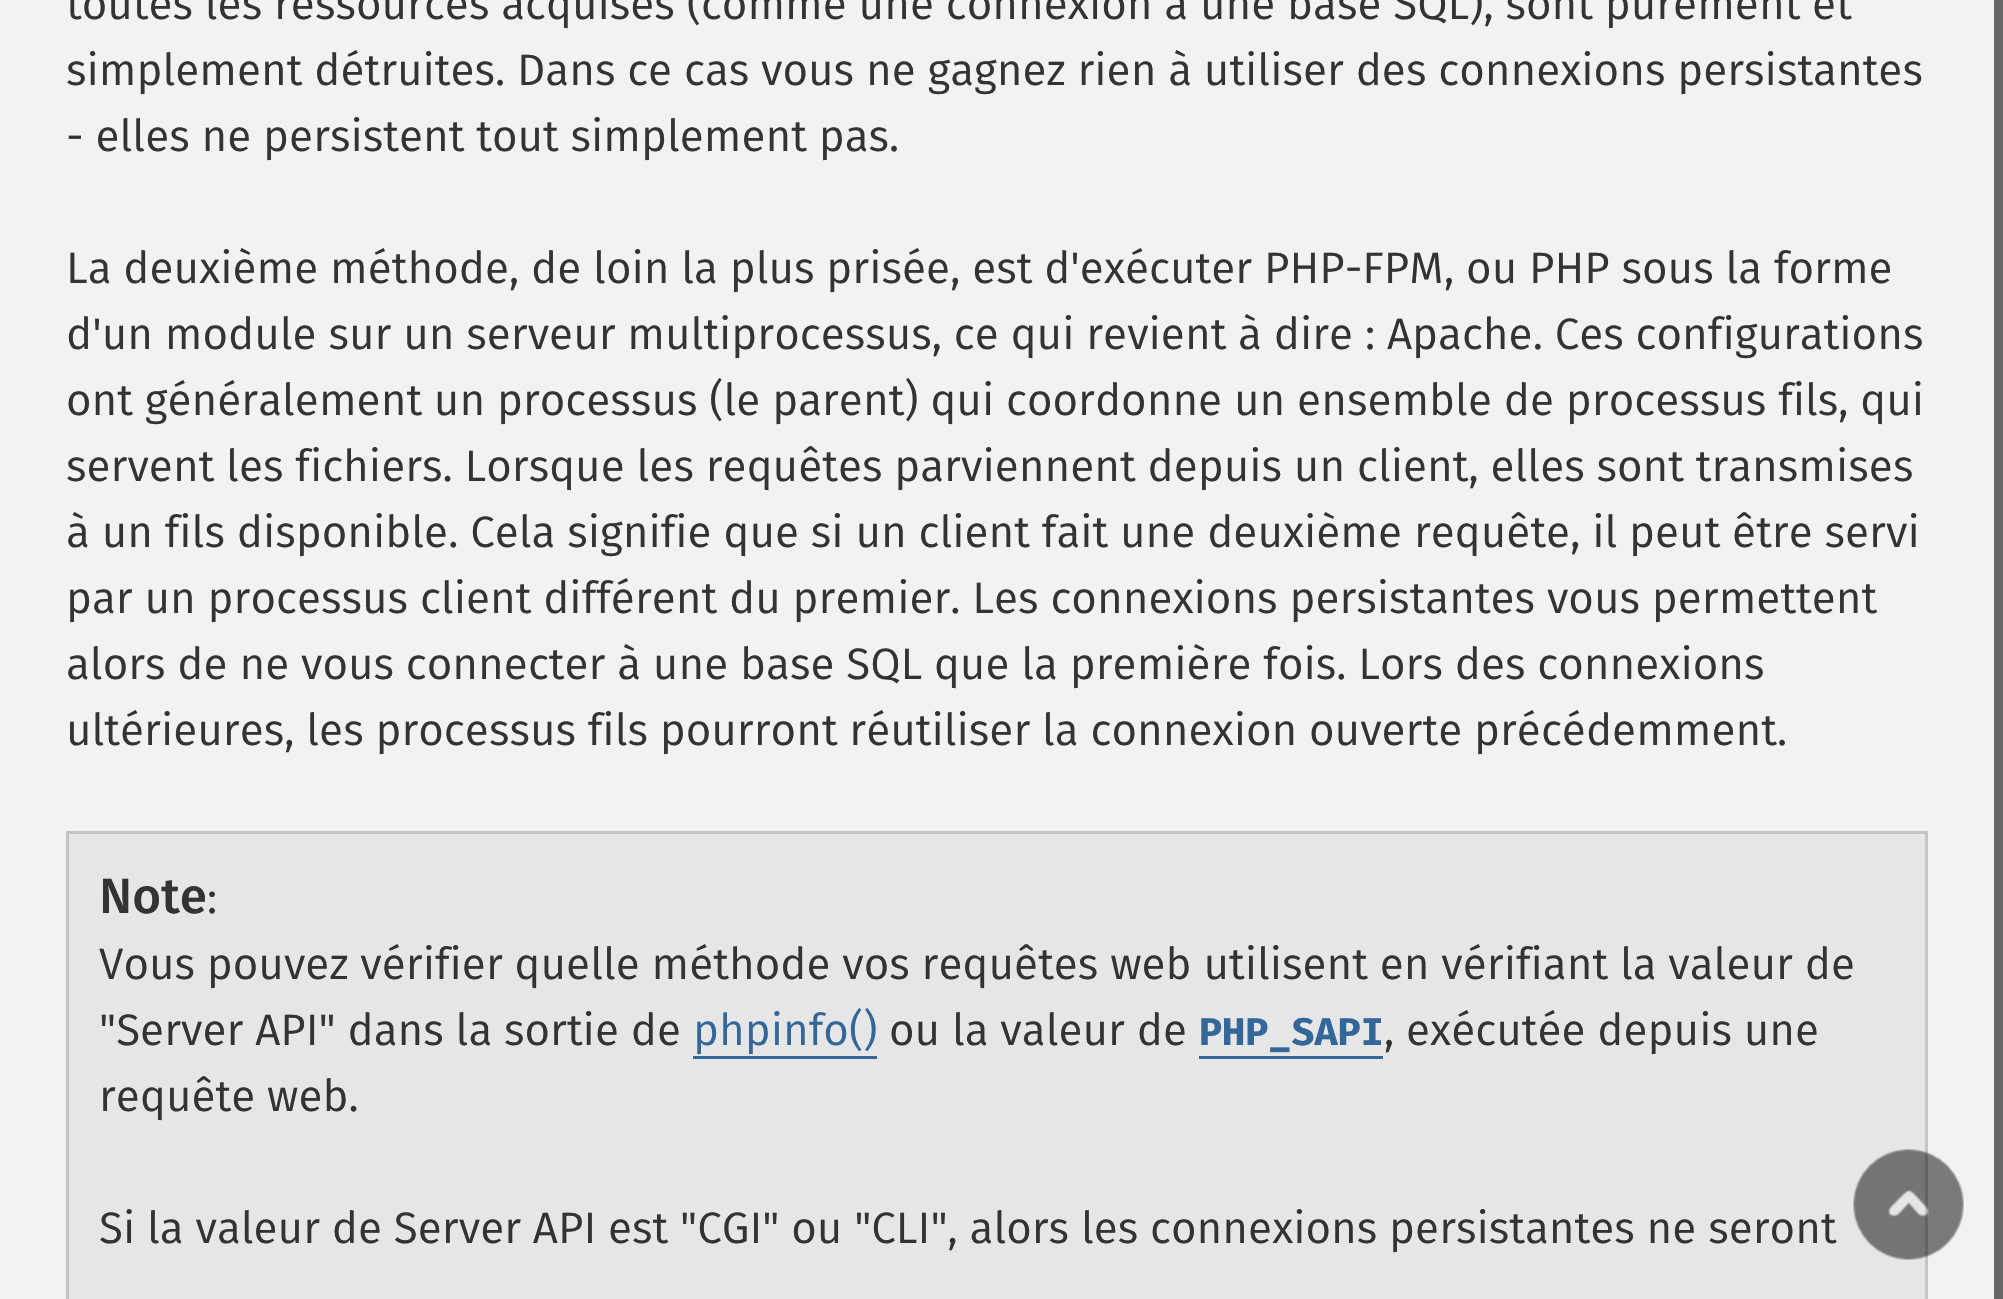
void draw(SkCanvas* canvas) {
    SkPaint paint;
    paint.setAntiAlias(true);
    auto face = [&](const char* family, int weight, float size, bool italic = false) {
        SkFontStyle style(weight, SkFontStyle::kNormal_Width,
            italic ? SkFontStyle::kItalic_Slant : SkFontStyle::kUpright_Slant);
        SkFont result(fontMgr->matchFamilyStyle(family, style), size);
        result.setSubpixel(true);
        return result;
    };
    auto write = [&](const char* s, float x, float y, const SkFont& font, SkColor color) {
        SkPaint ink(SkColor4f::FromColor(color));
        ink.setAntiAlias(true);
        canvas->drawString(s, x, y, font, ink);
    };
    auto block = [&](float x, float y, float w, float h, SkColor color) {
        SkPaint ink(SkColor4f::FromColor(color));
        ink.setAntiAlias(true);
        canvas->drawRect(SkRect::MakeXYWH(x, y, w, h), ink);
    };
    auto paste = [&](const char* path, float x, float y, float w, float h) {
        auto image = SkImages::DeferredFromEncodedData(SkData::MakeFromFileName(path));
        canvas->drawImageRect(image, SkRect::MakeXYWH(x, y, w, h), SkSamplingOptions());
    };
    canvas->clear(SkColorSetRGB(242, 242, 242));
    block(1994, 0, 9, 1299, SkColorSetRGB(102, 102, 102));
    auto kFont1 = face("Fira Sans", 400, 44);
    write("toutes les ressources acquises (comme une connexion à une base SQL), sont purement et", 66, 19, kFont1, SkColorSetRGB(51, 51, 51));
    write("simplement détruites. Dans ce cas vous ne gagnez rien à utiliser des connexions persistantes", 66, 85, kFont1, SkColorSetRGB(51, 51, 51));
    write("- elles ne persistent tout simplement pas.", 66, 151, kFont1, SkColorSetRGB(51, 51, 51));
    write("La deuxième méthode, de loin la plus prisée, est d'exécuter PHP-FPM, ou PHP sous la forme", 66, 283, kFont1, SkColorSetRGB(51, 51, 51));
    write("d'un module sur un serveur multiprocessus, ce qui revient à dire : Apache. Ces configurations", 66, 349, kFont1, SkColorSetRGB(51, 51, 51));
    write("ont généralement un processus (le parent) qui coordonne un ensemble de processus fils, qui", 66, 415, kFont1, SkColorSetRGB(51, 51, 51));
    write("servent les fichiers. Lorsque les requêtes parviennent depuis un client, elles sont transmises", 66, 481, kFont1, SkColorSetRGB(51, 51, 51));
    write("à un fils disponible. Cela signifie que si un client fait une deuxième requête, il peut être servi", 66, 547, kFont1, SkColorSetRGB(51, 51, 51));
    write("par un processus client différent du premier. Les connexions persistantes vous permettent", 66, 613, kFont1, SkColorSetRGB(51, 51, 51));
    write("alors de ne vous connecter à une base SQL que la première fois. Lors des connexions", 66, 679, kFont1, SkColorSetRGB(51, 51, 51));
    write("ultérieures, les processus fils pourront réutiliser la connexion ouverte précédemment.", 66, 745, kFont1, SkColorSetRGB(51, 51, 51));
    paint.setColor(SkColorSetRGB(230, 230, 230));
    canvas->drawRect(SkRect::MakeXYWH(67.5f, 832.5f, 1859, 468), paint);
    paint.setStyle(SkPaint::kStroke_Style);
    paint.setStrokeWidth(3);
    paint.setColor(SkColorSetRGB(196, 196, 196));
    canvas->drawRect(SkRect::MakeXYWH(67.5f, 832.5f, 1859, 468), paint);
    auto kFont2 = face("Fira Sans", 500, 49.5f);
    write("Note", 99, 913, kFont2, SkColorSetRGB(51, 51, 51));
    write(":", 207, 913, kFont1, SkColorSetRGB(51, 51, 51));
    write("Vous pouvez vérifier quelle méthode vos requêtes web utilisent en vérifiant la valeur de", 99, 979, kFont1, SkColorSetRGB(51, 51, 51));
    write("\"Server API\" dans la sortie de", 99, 1045, kFont1, SkColorSetRGB(51, 51, 51));
    write("phpinfo()", 693, 1045, kFont1, SkColorSetRGB(51, 102, 153));
    block(693, 1056, 184, 3, SkColorSetRGB(51, 102, 153));
    write("ou la valeur de", 889, 1045, kFont1, SkColorSetRGB(51, 51, 51));
    auto kFont3 = face("Fira Mono", 700, 38.5f);
    write("PHP_SAPI", 1199, 1045, kFont3, SkColorSetRGB(51, 102, 153));
    block(1199, 1056, 184, 3, SkColorSetRGB(51, 102, 153));
    write(", exécutée depuis une", 1384, 1045, kFont1, SkColorSetRGB(51, 51, 51));
    write("requête web.", 99, 1111, kFont1, SkColorSetRGB(51, 51, 51));
    write("Si la valeur de Server API est \"CGI\" ou \"CLI\", alors les connexions persistantes ne seront", 99, 1243, kFont1, SkColorSetRGB(51, 51, 51));
    paste("pic1.png", 1853, 1149, 111, 111);
}
